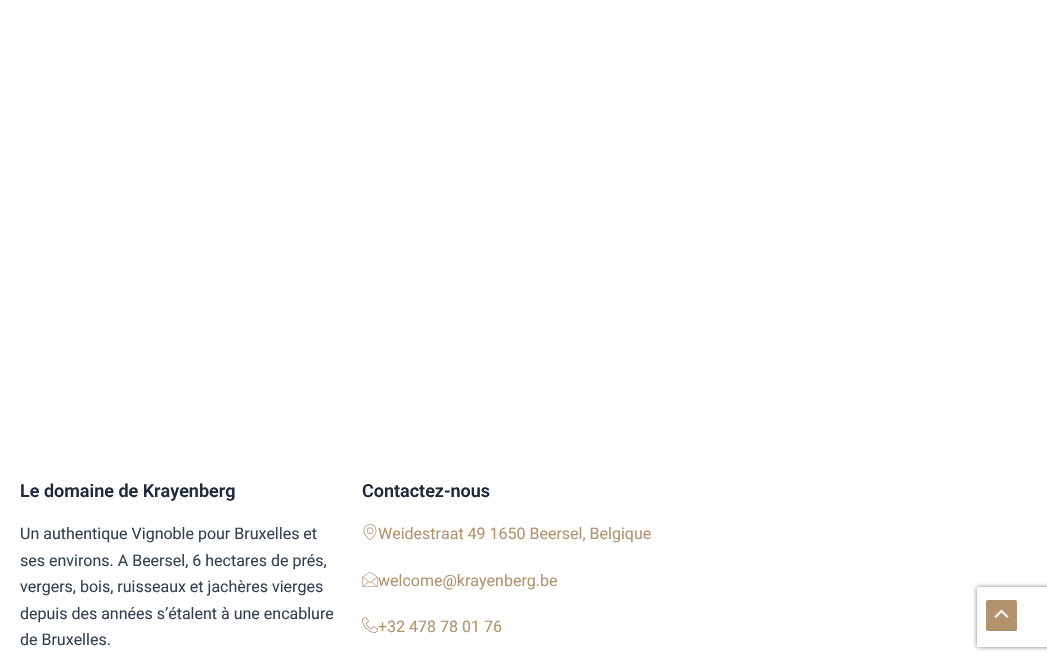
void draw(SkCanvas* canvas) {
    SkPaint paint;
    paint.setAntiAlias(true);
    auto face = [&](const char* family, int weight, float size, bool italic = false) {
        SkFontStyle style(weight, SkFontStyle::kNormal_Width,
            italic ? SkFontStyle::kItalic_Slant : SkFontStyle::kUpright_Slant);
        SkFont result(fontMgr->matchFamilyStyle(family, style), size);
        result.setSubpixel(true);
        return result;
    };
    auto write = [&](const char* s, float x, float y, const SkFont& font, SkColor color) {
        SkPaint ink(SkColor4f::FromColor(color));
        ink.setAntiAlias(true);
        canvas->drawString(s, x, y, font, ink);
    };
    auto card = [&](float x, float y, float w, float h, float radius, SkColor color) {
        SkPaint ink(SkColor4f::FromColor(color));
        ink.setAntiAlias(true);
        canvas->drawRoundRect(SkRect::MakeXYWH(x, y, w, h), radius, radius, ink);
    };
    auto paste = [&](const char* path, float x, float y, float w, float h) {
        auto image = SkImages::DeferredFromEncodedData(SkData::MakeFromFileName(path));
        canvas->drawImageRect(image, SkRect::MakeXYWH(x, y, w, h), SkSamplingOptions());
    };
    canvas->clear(SK_ColorWHITE);
    auto kFont1 = face("Roboto", 600, 18);
    write("Le domaine de Krayenberg", 20, 497, kFont1, SkColorSetRGB(30, 41, 59));
    auto kFont2 = face("Roboto", 400, 16);
    write("Un authentique Vignoble pour Bruxelles et", 20, 539, kFont2, SkColorSetRGB(51, 65, 85));
    write("ses environs. A Beersel, 6 hectares de prés,", 20, 566, kFont2, SkColorSetRGB(51, 65, 85));
    write("vergers, bois, ruisseaux et jachères vierges", 20, 592, kFont2, SkColorSetRGB(51, 65, 85));
    write("depuis des années s’étalent à une encablure", 20, 619, kFont2, SkColorSetRGB(51, 65, 85));
    write("de Bruxelles.", 20, 645, kFont2, SkColorSetRGB(51, 65, 85));
    write("Contactez-nous", 362, 497, kFont1, SkColorSetRGB(30, 41, 59));
    paste("pic1.png", 363, 524, 14, 17);
    write("Weidestraat 49 1650 Beersel, Belgique", 378, 539, kFont2, SkColorSetRGB(178, 147, 109));
    paste("pic2.png", 362, 571, 16, 16);
    write("welcome@krayenberg.be", 378, 586, kFont2, SkColorSetRGB(178, 147, 109));
    paste("pic3.png", 362, 617, 16, 16);
    write("+32 478 78 01 76", 378, 632, kFont2, SkColorSetRGB(178, 147, 109));
    canvas->save();
    canvas->clipPath(SkPathBuilder(SkPathFillType::kEvenOdd).moveTo(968, 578).lineTo(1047, 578).lineTo(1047, 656).lineTo(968, 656).close().moveTo(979, 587).lineTo(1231, 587).cubicTo(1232, 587, 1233, 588, 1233, 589).lineTo(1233, 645).cubicTo(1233, 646, 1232, 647, 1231, 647).lineTo(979, 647).cubicTo(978, 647, 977, 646, 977, 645).lineTo(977, 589).cubicTo(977, 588, 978, 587, 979, 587).close().detach(), true);
    paint.setColor(SkColorSetRGB(128, 128, 128));
    paint.setMaskFilter(SkMaskFilter::MakeBlur(kNormal_SkBlurStyle, 2.5f));
    canvas->drawRoundRect(SkRect::MakeXYWH(977, 587, 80, 60), 2, 2, paint);
    paint.setMaskFilter(nullptr);
    canvas->restore();
    card(986, 600, 31, 31, 2, SkColorSetRGB(178, 147, 109));
    paste("pic4.png", 994, 609, 15, 9);
}
